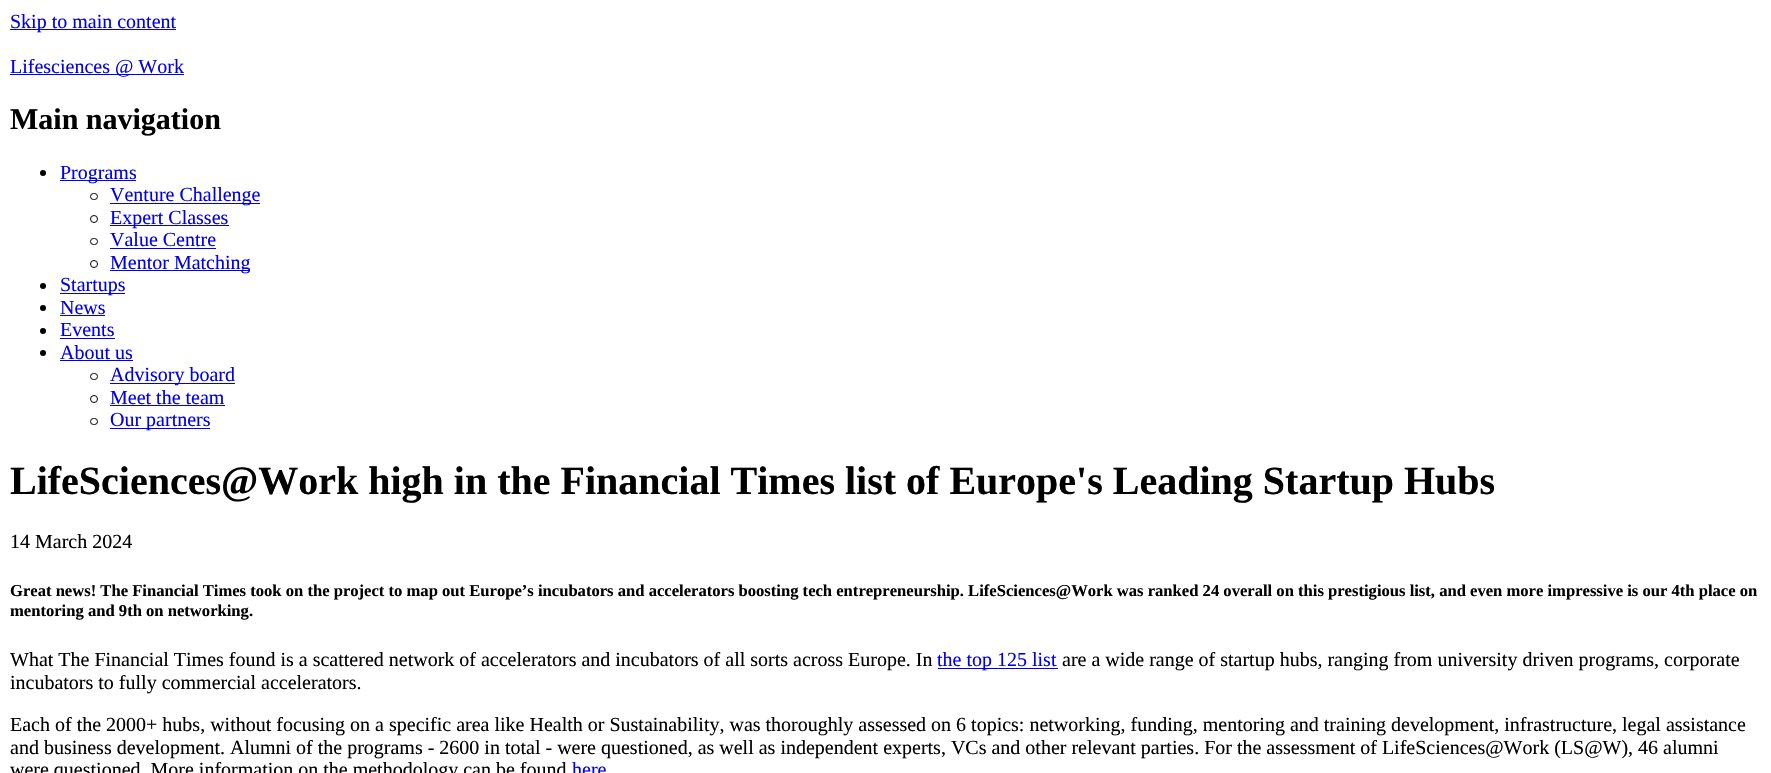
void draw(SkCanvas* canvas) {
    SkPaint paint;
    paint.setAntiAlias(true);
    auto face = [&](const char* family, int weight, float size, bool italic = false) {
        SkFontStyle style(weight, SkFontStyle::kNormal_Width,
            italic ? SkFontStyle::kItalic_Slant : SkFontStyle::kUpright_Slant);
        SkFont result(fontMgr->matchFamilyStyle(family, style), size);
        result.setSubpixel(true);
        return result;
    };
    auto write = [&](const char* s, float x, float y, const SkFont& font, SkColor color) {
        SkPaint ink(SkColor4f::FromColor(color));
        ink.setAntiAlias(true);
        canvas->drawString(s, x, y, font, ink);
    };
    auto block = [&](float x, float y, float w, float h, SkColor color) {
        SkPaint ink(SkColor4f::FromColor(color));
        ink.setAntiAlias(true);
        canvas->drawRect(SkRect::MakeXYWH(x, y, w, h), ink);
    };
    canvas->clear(SK_ColorWHITE);
    block(10, 29, 166, 1, SkColorSetRGB(0, 0, 238));
    auto kFont1 = face("Liberation Serif", 400, 20);
    write("Skip to main content", 10, 28, kFont1, SkColorSetRGB(0, 0, 238));
    block(10, 74, 174, 1, SkColorSetRGB(0, 0, 238));
    write("Lifesciences @ Work", 10, 73, kFont1, SkColorSetRGB(0, 0, 238));
    auto kFont2 = face("Liberation Serif", 700, 30);
    write("Main navigation", 10, 129, kFont2, SK_ColorBLACK);
    paint.setColor(SK_ColorBLACK);
    canvas->drawCircle(43, 173, 3, paint);
    block(60, 180, 76, 1, SkColorSetRGB(0, 0, 238));
    write("Programs", 60, 179, kFont1, SkColorSetRGB(0, 0, 238));
    paint.setStyle(SkPaint::kStroke_Style);
    paint.setStrokeWidth(1);
    canvas->drawRoundRect(SkRect::MakeXYWH(90.5f, 193.5f, 7, 6), 3, 3, paint);
    block(110, 203, 150, 1, SkColorSetRGB(0, 0, 238));
    write("Venture Challenge", 110, 201, kFont1, SkColorSetRGB(0, 0, 238));
    canvas->drawCircle(94, 219, 3.5f, paint);
    block(110, 225, 119, 1, SkColorSetRGB(0, 0, 238));
    write("Expert Classes", 110, 224, kFont1, SkColorSetRGB(0, 0, 238));
    canvas->drawRoundRect(SkRect::MakeXYWH(90.5f, 238.5f, 7, 6), 3, 3, paint);
    write("Value Centre", 110, 246, kFont1, SkColorSetRGB(0, 0, 238));
    block(110, 248, 106, 1, SkColorSetRGB(0, 0, 238));
    canvas->drawCircle(94, 264, 3.5f, paint);
    block(110, 270, 140, 1, SkColorSetRGB(0, 0, 238));
    write("Mentor Matching", 110, 269, kFont1, SkColorSetRGB(0, 0, 238));
    paint.setStyle(SkPaint::kFill_Style);
    canvas->drawCircle(43, 286, 3, paint);
    block(60, 293, 65, 1, SkColorSetRGB(0, 0, 238));
    write("Startups", 60, 291, kFont1, SkColorSetRGB(0, 0, 238));
    canvas->drawCircle(43, 308, 3, paint);
    write("News", 60, 314, kFont1, SkColorSetRGB(0, 0, 238));
    block(60, 315, 45, 1, SkColorSetRGB(0, 0, 238));
    canvas->drawCircle(43, 331, 3, paint);
    write("Events", 60, 336, kFont1, SkColorSetRGB(0, 0, 238));
    block(60, 338, 55, 1, SkColorSetRGB(0, 0, 238));
    canvas->drawCircle(43, 353, 3, paint);
    write("About us", 60, 359, kFont1, SkColorSetRGB(0, 0, 238));
    block(60, 360, 73, 1, SkColorSetRGB(0, 0, 238));
    paint.setStyle(SkPaint::kStroke_Style);
    canvas->drawRoundRect(SkRect::MakeXYWH(90.5f, 373.5f, 7, 6), 3, 3, paint);
    block(110, 383, 125, 1, SkColorSetRGB(0, 0, 238));
    write("Advisory board", 110, 381, kFont1, SkColorSetRGB(0, 0, 238));
    canvas->drawCircle(94, 399, 3.5f, paint);
    write("Meet the team", 110, 404, kFont1, SkColorSetRGB(0, 0, 238));
    block(110, 405, 115, 1, SkColorSetRGB(0, 0, 238));
    canvas->drawRoundRect(SkRect::MakeXYWH(90.5f, 418.5f, 7, 6), 3, 3, paint);
    block(110, 428, 100, 1, SkColorSetRGB(0, 0, 238));
    write("Our partners", 110, 426, kFont1, SkColorSetRGB(0, 0, 238));
    auto kFont3 = face("Liberation Serif", 700, 40);
    write("LifeSciences@Work high in the Financial Times list of Europe's Leading Startup Hubs", 10, 494, kFont3, SK_ColorBLACK);
    write("14 March 2024", 10, 548, kFont1, SK_ColorBLACK);
    auto kFont4 = face("Liberation Serif", 700, 16.6f);
    write("Great news! The Financial Times took on the project to map out Europe’s incubators and accelerators boosting tech entrepreneurship. LifeSciences@Work was ranked 24 overall on this prestigious list, and even more impressive is our 4th place on", 10, 596, kFont4, SK_ColorBLACK);
    write("mentoring and 9th on networking.", 10, 616, kFont4, SK_ColorBLACK);
    write("What The Financial Times found is a scattered network of accelerators and incubators of all sorts across Europe. In", 10, 666, kFont1, SK_ColorBLACK);
    block(938, 668, 120, 1, SkColorSetRGB(0, 0, 238));
    write("the top 125 list", 937, 666, kFont1, SkColorSetRGB(0, 0, 238));
    write("are a wide range of startup hubs, ranging from university driven programs, corporate", 1062, 666, kFont1, SK_ColorBLACK);
    write("incubators to fully commercial accelerators.", 10, 689, kFont1, SK_ColorBLACK);
    write("Each of the 2000+ hubs, without focusing on a specific area like Health or Sustainability, was thoroughly assessed on 6 topics: networking, funding, mentoring and training development, infrastructure, legal assistance", 10, 731, kFont1, SK_ColorBLACK);
    write("and business development. Alumni of the programs - 2600 in total - were questioned, as well as independent experts, VCs and other relevant parties. For the assessment of LifeSciences@Work (LS@W), 46 alumni", 10, 754, kFont1, SK_ColorBLACK);
    write("were questioned. More information on the methodology can be found", 10, 776, kFont1, SK_ColorBLACK);
    write("here", 572, 776, kFont1, SkColorSetRGB(0, 0, 238));
}
